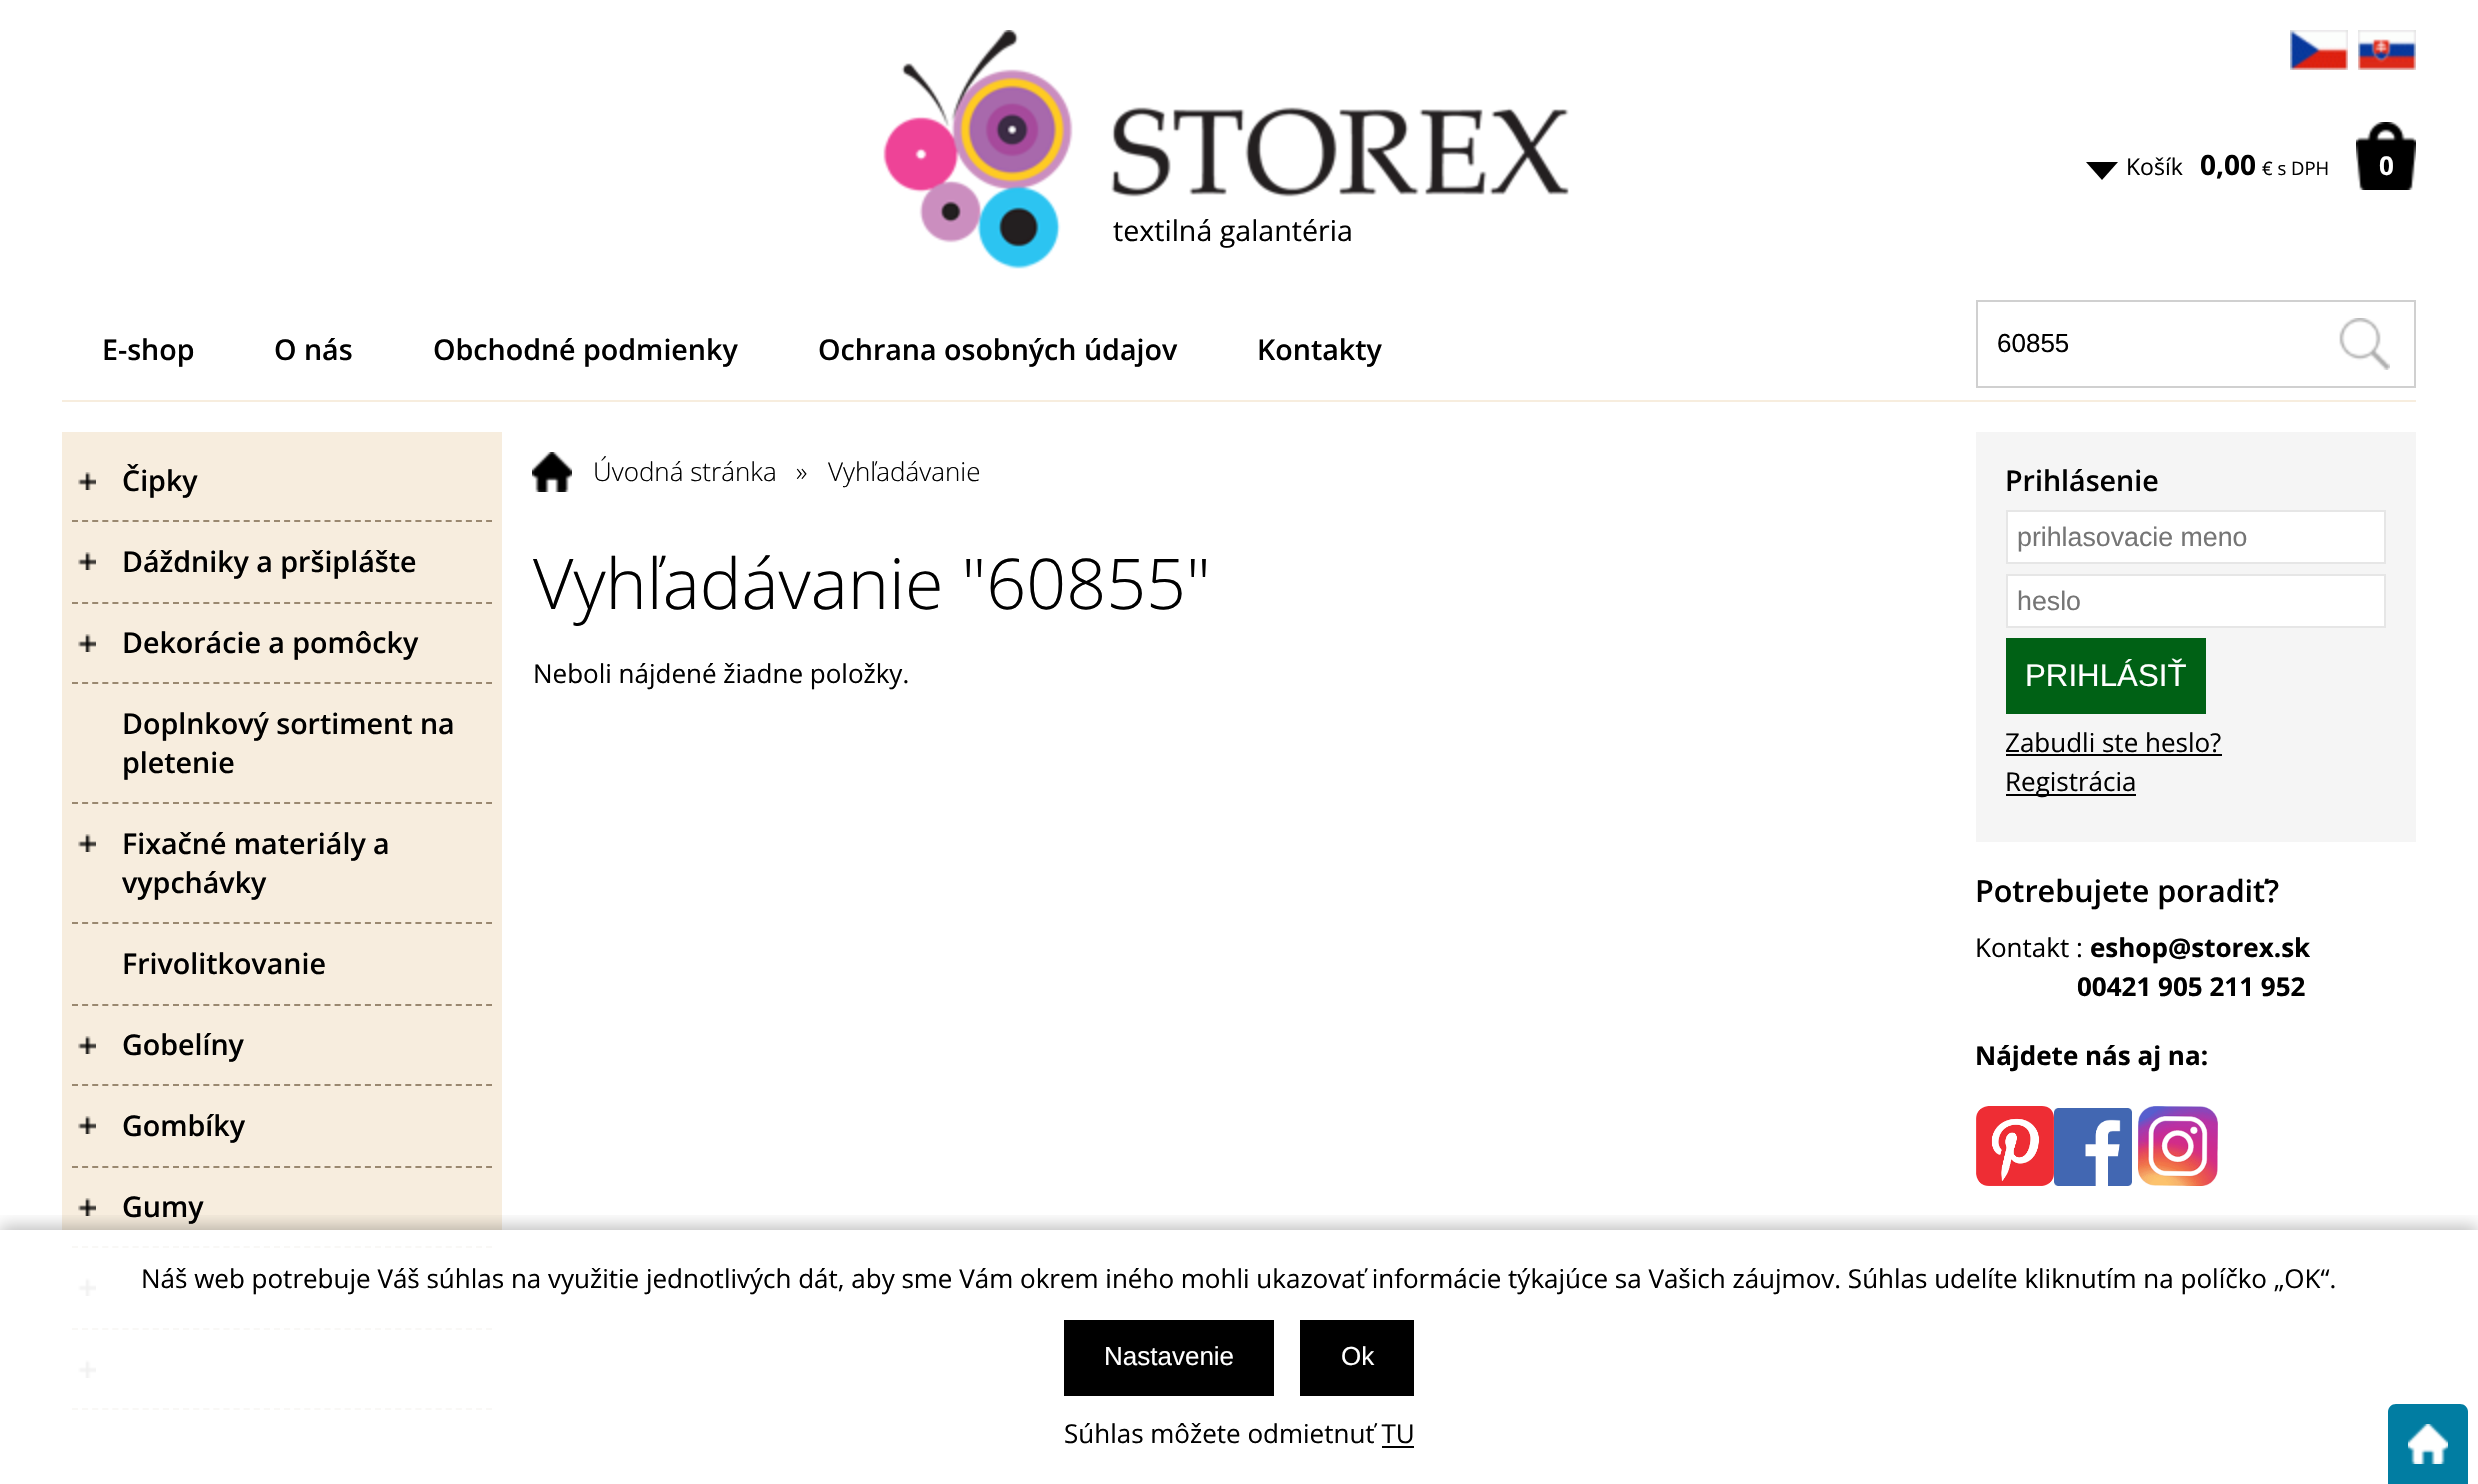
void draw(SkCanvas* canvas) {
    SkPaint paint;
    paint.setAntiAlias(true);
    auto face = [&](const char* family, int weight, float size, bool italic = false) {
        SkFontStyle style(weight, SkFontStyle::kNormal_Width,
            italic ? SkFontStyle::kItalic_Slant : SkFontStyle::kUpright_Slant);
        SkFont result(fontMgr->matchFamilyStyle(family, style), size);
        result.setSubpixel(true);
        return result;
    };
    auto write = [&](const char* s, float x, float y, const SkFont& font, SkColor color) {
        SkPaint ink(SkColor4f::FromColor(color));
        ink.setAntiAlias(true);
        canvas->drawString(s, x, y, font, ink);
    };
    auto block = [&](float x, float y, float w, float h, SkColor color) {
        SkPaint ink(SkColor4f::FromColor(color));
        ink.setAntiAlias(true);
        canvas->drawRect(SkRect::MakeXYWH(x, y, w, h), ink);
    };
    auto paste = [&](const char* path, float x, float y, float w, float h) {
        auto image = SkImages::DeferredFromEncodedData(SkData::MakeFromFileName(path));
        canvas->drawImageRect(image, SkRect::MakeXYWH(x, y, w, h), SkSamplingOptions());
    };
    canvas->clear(SK_ColorWHITE);
    paste("pic1.png", 2290, 30, 58, 40);
    paste("pic2.png", 2358, 30, 58, 40);
    paint.setColor(SK_ColorBLACK);
    canvas->drawPath(SkPathBuilder().moveTo(2086, 162).lineTo(2118, 162).lineTo(2102, 180).close().detach(), paint);
    auto kFont1 = face("Open Sans", 400, 23);
    write("Košík", 2126, 175, kFont1, SK_ColorBLACK);
    auto kFont2 = face("Open Sans", 700, 28);
    write("0,00", 2200, 175, kFont2, SK_ColorBLACK);
    auto kFont3 = face("Open Sans", 400, 18.5f);
    write("€ s DPH", 2262, 175, kFont3, SK_ColorBLACK);
    paste("pic3.png", 2356, 122, 60, 68);
    auto kFont4 = face("Open Sans", 700, 26);
    write("0", 2379, 175, kFont4, SK_ColorWHITE);
    paste("pic4.png", 883, 30, 686, 239);
    auto kFont5 = face("Open Sans", 400, 28.6f);
    write("textilná galantéria", 1113, 241, kFont5, SK_ColorBLACK);
    block(62, 400, 2354, 2, SkColorSetRGB(247, 237, 222));
    auto kFont6 = face("Open Sans", 600, 28.6f);
    write("E-shop", 102, 360, kFont6, SK_ColorBLACK);
    write("O nás", 274, 360, kFont6, SK_ColorBLACK);
    write("Obchodné podmienky", 433, 360, kFont6, SK_ColorBLACK);
    write("Ochrana osobných údajov", 818, 360, kFont6, SK_ColorBLACK);
    write("Kontakty", 1257, 360, kFont6, SK_ColorBLACK);
    paint.setStyle(SkPaint::kStroke_Style);
    paint.setStrokeWidth(2);
    paint.setColor(SkColorSetRGB(208, 208, 208));
    canvas->drawRect(SkRect::MakeXYWH(1977, 301, 438, 86), paint);
    auto kFont7 = face("Liberation Sans", 400, 26);
    write("60855", 1997, 352, kFont7, SK_ColorBLACK);
    paste("pic5.png", 2339, 318, 51, 52);
    block(62, 432, 440, 798, SkColorSetRGB(247, 237, 222));
    paste("pic6.png", 78, 472, 18, 18);
    paint.setColor(SkColorSetRGB(154, 136, 112));
    paint.setPathEffect(SkDashPathEffect::Make({{6, 4.1f}}, 0));
    canvas->drawPath(SkPathBuilder().moveTo(72, 521).lineTo(492, 521).detach(), paint);
    paint.setPathEffect(nullptr);
    write("Čipky", 122, 491, kFont6, SK_ColorBLACK);
    paste("pic6.png", 78, 552, 18, 18);
    paint.setPathEffect(SkDashPathEffect::Make({{6, 4.1f}}, 0));
    canvas->drawPath(SkPathBuilder().moveTo(72, 603).lineTo(492, 603).detach(), paint);
    paint.setPathEffect(nullptr);
    write("Dáždniky a pršiplášte", 122, 572, kFont6, SK_ColorBLACK);
    paste("pic6.png", 78, 634, 18, 18);
    paint.setPathEffect(SkDashPathEffect::Make({{6, 4.1f}}, 0));
    canvas->drawPath(SkPathBuilder().moveTo(72, 683).lineTo(492, 683).detach(), paint);
    paint.setPathEffect(nullptr);
    write("Dekorácie a pomôcky", 122, 653, kFont6, SK_ColorBLACK);
    paint.setPathEffect(SkDashPathEffect::Make({{6, 4.1f}}, 0));
    canvas->drawPath(SkPathBuilder().moveTo(72, 803).lineTo(492, 803).detach(), paint);
    paint.setPathEffect(nullptr);
    write("Doplnkový sortiment na", 122, 734, kFont6, SK_ColorBLACK);
    write("pletenie", 122, 773, kFont6, SK_ColorBLACK);
    paste("pic6.png", 78, 834, 18, 18);
    paint.setPathEffect(SkDashPathEffect::Make({{6, 4.1f}}, 0));
    canvas->drawPath(SkPathBuilder().moveTo(72, 923).lineTo(492, 923).detach(), paint);
    paint.setPathEffect(nullptr);
    write("Fixačné materiály a", 122, 854, kFont6, SK_ColorBLACK);
    write("vypchávky", 122, 893, kFont6, SK_ColorBLACK);
    paint.setPathEffect(SkDashPathEffect::Make({{6, 4.1f}}, 0));
    canvas->drawPath(SkPathBuilder().moveTo(72, 1005).lineTo(492, 1005).detach(), paint);
    paint.setPathEffect(nullptr);
    write("Frivolitkovanie", 122, 974, kFont6, SK_ColorBLACK);
    paste("pic6.png", 78, 1036, 18, 18);
    paint.setPathEffect(SkDashPathEffect::Make({{6, 4.1f}}, 0));
    canvas->drawPath(SkPathBuilder().moveTo(72, 1085).lineTo(492, 1085).detach(), paint);
    paint.setPathEffect(nullptr);
    write("Gobelíny", 122, 1055, kFont6, SK_ColorBLACK);
    paste("pic6.png", 78, 1116, 18, 18);
    paint.setPathEffect(SkDashPathEffect::Make({{6, 4.1f}}, 0));
    canvas->drawPath(SkPathBuilder().moveTo(72, 1167).lineTo(492, 1167).detach(), paint);
    paint.setPathEffect(nullptr);
    write("Gombíky", 122, 1136, kFont6, SK_ColorBLACK);
    paste("pic6.png", 78, 1198, 18, 18);
    paint.setColor(SkColorSetRGB(249, 248, 246));
    paint.setPathEffect(SkDashPathEffect::Make({{6, 4.1f}}, 0));
    canvas->drawPath(SkPathBuilder().moveTo(72, 1247).lineTo(492, 1247).detach(), paint);
    paint.setPathEffect(nullptr);
    write("Gumy", 122, 1217, kFont6, SK_ColorBLACK);
    paste("pic7.png", 78, 1278, 18, 18);
    paint.setPathEffect(SkDashPathEffect::Make({{6, 4.1f}}, 0));
    canvas->drawPath(SkPathBuilder().moveTo(72, 1329).lineTo(492, 1329).detach(), paint);
    paint.setPathEffect(nullptr);
    paste("pic7.png", 78, 1360, 18, 18);
    paint.setPathEffect(SkDashPathEffect::Make({{6, 4.1f}}, 0));
    canvas->drawPath(SkPathBuilder().moveTo(72, 1409).lineTo(492, 1409).detach(), paint);
    paint.setPathEffect(nullptr);
    paste("pic8.png", 532, 452, 40, 40);
    auto kFont8 = face("Open Sans", 300, 26);
    write("Úvodná stránka", 593, 481, kFont8, SK_ColorBLACK);
    write("»", 796, 481, kFont8, SK_ColorBLACK);
    write("Vyhľadávanie", 828, 481, kFont8, SK_ColorBLACK);
    auto kFont9 = face("Open Sans", 300, 70);
    write("Vyhľadávanie \"60855\"", 533, 609, kFont9, SK_ColorBLACK);
    auto kFont10 = face("Open Sans", 400, 26);
    write("Neboli nájdené žiadne položky.", 533, 683, kFont10, SK_ColorBLACK);
    block(1976, 432, 440, 410, SkColorSetRGB(245, 245, 245));
    write("Prihlásenie", 2005, 491, kFont6, SK_ColorBLACK);
    paint.setStyle(SkPaint::kFill_Style);
    paint.setColor(SK_ColorWHITE);
    canvas->drawRect(SkRect::MakeXYWH(2007, 511, 378, 52), paint);
    paint.setStyle(SkPaint::kStroke_Style);
    paint.setColor(SkColorSetRGB(230, 230, 230));
    canvas->drawRect(SkRect::MakeXYWH(2007, 511, 378, 52), paint);
    auto kFont11 = face("Liberation Sans", 400, 26.75f);
    write("prihlasovacie meno", 2017, 546, kFont11, SkColorSetRGB(117, 117, 117));
    paint.setStyle(SkPaint::kFill_Style);
    paint.setColor(SK_ColorWHITE);
    canvas->drawRect(SkRect::MakeXYWH(2007, 575, 378, 52), paint);
    paint.setStyle(SkPaint::kStroke_Style);
    paint.setColor(SkColorSetRGB(230, 230, 230));
    canvas->drawRect(SkRect::MakeXYWH(2007, 575, 378, 52), paint);
    write("heslo", 2017, 610, kFont11, SkColorSetRGB(117, 117, 117));
    block(2006, 638, 200, 76, SkColorSetRGB(0, 97, 21));
    auto kFont12 = face("Liberation Sans", 400, 31.25f);
    write("PRIHLÁSIŤ", 2025, 686, kFont12, SK_ColorWHITE);
    write("Zabudli ste heslo?", 2005, 752, kFont10, SK_ColorBLACK);
    block(2006, 754, 216, 2, SK_ColorBLACK);
    block(2006, 794, 130, 2, SK_ColorBLACK);
    write("Registrácia", 2005, 791, kFont10, SK_ColorBLACK);
    auto kFont13 = face("Open Sans", 600, 30.5f);
    write("Potrebujete poradiť?", 1975, 902, kFont13, SK_ColorBLACK);
    write("Kontakt :", 1975, 957, kFont10, SK_ColorBLACK);
    write("eshop@storex.sk", 2090, 957, kFont4, SK_ColorBLACK);
    write("00421 905 211 952", 2077, 996, kFont4, SK_ColorBLACK);
    write("Nájdete nás aj na:", 1975, 1065, kFont4, SK_ColorBLACK);
    paste("pic9.png", 1976, 1106, 78, 80);
    paste("pic10.png", 2054, 1108, 78, 78);
    paste("pic11.png", 2138, 1106, 80, 80);
    canvas->save();
    canvas->clipRect(SkRect::MakeXYWH(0, 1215, 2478, 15));
    paint.setStyle(SkPaint::kFill_Style);
    paint.setColor(SkColorSetARGB(64, 0, 0, 0));
    paint.setMaskFilter(SkMaskFilter::MakeBlur(kNormal_SkBlurStyle, 8));
    canvas->drawRect(SkRect::MakeXYWH(0, 1226, 2478, 254), paint);
    paint.setMaskFilter(nullptr);
    canvas->restore();
    write("Náš web potrebuje Váš súhlas na využitie jednotlivých dát, aby sme Vám okrem iného mohli ukazovať informácie týkajúce sa Vašich záujmov. Súhlas udelíte kliknutím na políčko „OK“.", 141, 1288, kFont10, SK_ColorBLACK);
    block(1064, 1320, 210, 76, SK_ColorBLACK);
    write("Nastavenie", 1104, 1365, kFont7, SK_ColorWHITE);
    block(1300, 1320, 114, 76, SK_ColorBLACK);
    write("Ok", 1341, 1365, kFont7, SK_ColorWHITE);
    write("Súhlas môžete odmietnuť TU", 1064, 1443, kFont10, SK_ColorBLACK);
    block(1382, 1446, 32, 2, SK_ColorBLACK);
    paint.setColor(SkColorSetRGB(1, 125, 162));
    canvas->drawPath(SkPathBuilder().moveTo(2396, 1404).lineTo(2460, 1404).cubicTo(2464.5f, 1404, 2468, 1407.5f, 2468, 1412).lineTo(2468, 1484).lineTo(2388, 1484).lineTo(2388, 1412).cubicTo(2388, 1407.5f, 2391.5f, 1404, 2396, 1404).close().detach(), paint);
    paste("pic12.png", 2408, 1424, 40, 40);
}
